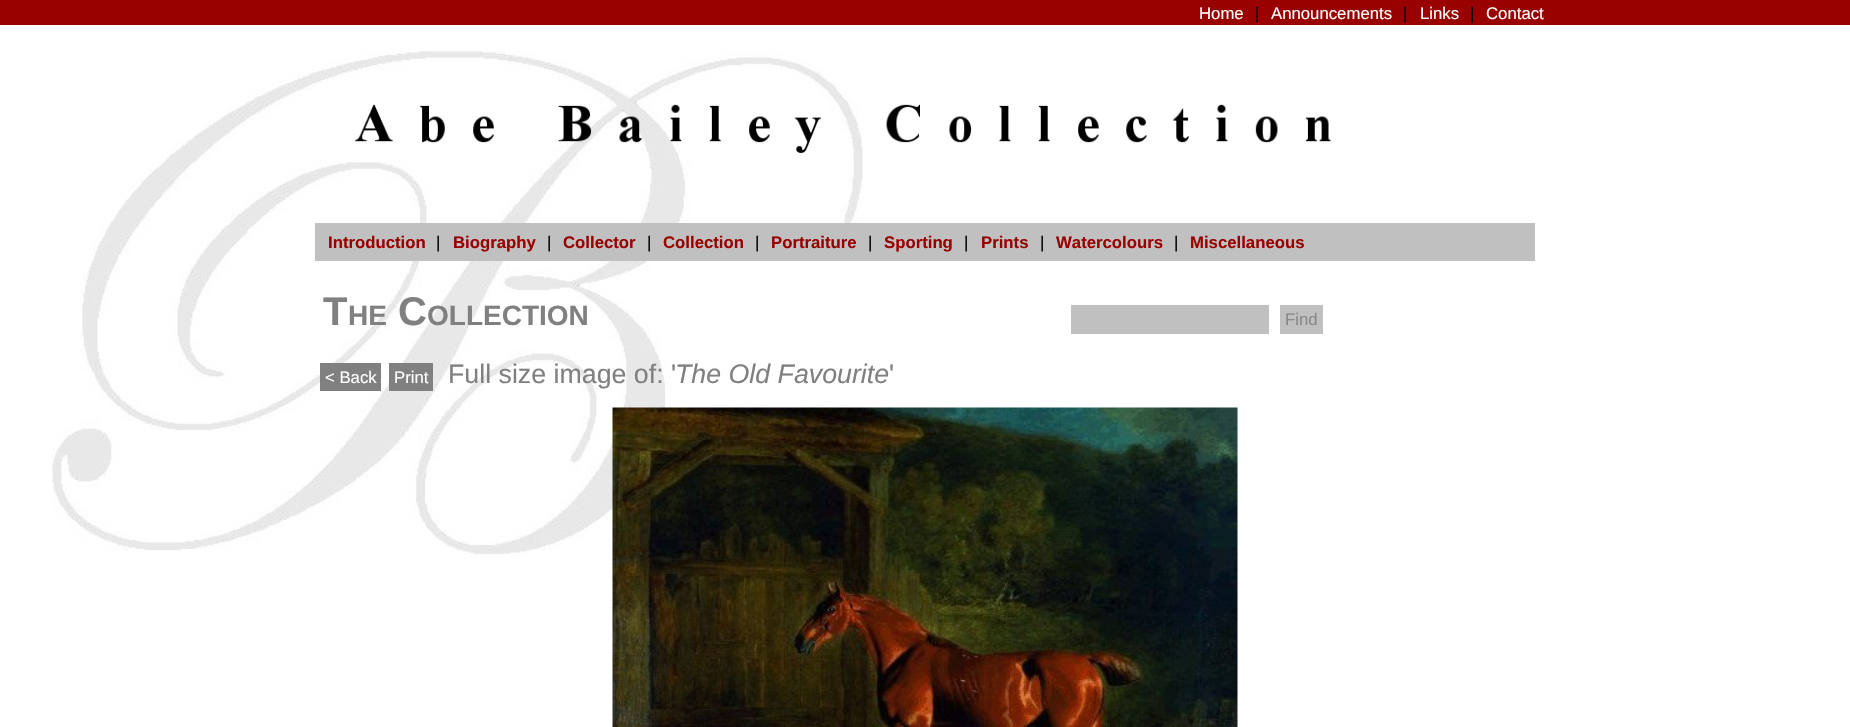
void draw(SkCanvas* canvas) {
    SkPaint paint;
    paint.setAntiAlias(true);
    auto face = [&](const char* family, int weight, float size, bool italic = false) {
        SkFontStyle style(weight, SkFontStyle::kNormal_Width,
            italic ? SkFontStyle::kItalic_Slant : SkFontStyle::kUpright_Slant);
        SkFont result(fontMgr->matchFamilyStyle(family, style), size);
        result.setSubpixel(true);
        return result;
    };
    auto write = [&](const char* s, float x, float y, const SkFont& font, SkColor color) {
        SkPaint ink(SkColor4f::FromColor(color));
        ink.setAntiAlias(true);
        canvas->drawString(s, x, y, font, ink);
    };
    auto block = [&](float x, float y, float w, float h, SkColor color) {
        SkPaint ink(SkColor4f::FromColor(color));
        ink.setAntiAlias(true);
        canvas->drawRect(SkRect::MakeXYWH(x, y, w, h), ink);
    };
    auto paste = [&](const char* path, float x, float y, float w, float h) {
        auto image = SkImages::DeferredFromEncodedData(SkData::MakeFromFileName(path));
        canvas->drawImageRect(image, SkRect::MakeXYWH(x, y, w, h), SkSamplingOptions());
    };
    canvas->clear(SK_ColorWHITE);
    paste("pic1.png", 52, 51, 811, 504);
    block(0, 0, 1850, 25, SkColorSetRGB(153, 0, 0));
    auto kFont1 = face("Liberation Sans", 400, 16.75f);
    write("Home", 1199, 19, kFont1, SK_ColorWHITE);
    write("|", 1255, 19, kFont1, SK_ColorBLACK);
    write("Announcements", 1271, 19, kFont1, SK_ColorWHITE);
    write("|", 1403, 19, kFont1, SK_ColorBLACK);
    write("Links", 1420, 19, kFont1, SK_ColorWHITE);
    write("|", 1470, 19, kFont1, SK_ColorBLACK);
    write("Contact", 1486, 19, kFont1, SK_ColorWHITE);
    paste("pic2.png", 354, 104, 977, 49);
    block(315, 223, 1220, 38, SkColorSetRGB(192, 192, 192));
    auto kFont2 = face("Liberation Sans", 700, 16.75f);
    write("Introduction", 328, 248, kFont2, SkColorSetRGB(153, 0, 0));
    write("|", 436, 248, kFont1, SK_ColorBLACK);
    write("Biography", 453, 248, kFont2, SkColorSetRGB(153, 0, 0));
    write("|", 547, 248, kFont1, SK_ColorBLACK);
    write("Collector", 563, 248, kFont2, SkColorSetRGB(153, 0, 0));
    write("|", 647, 248, kFont1, SK_ColorBLACK);
    write("Collection", 663, 248, kFont2, SkColorSetRGB(153, 0, 0));
    write("|", 755, 248, kFont1, SK_ColorBLACK);
    write("Portraiture", 771, 248, kFont2, SkColorSetRGB(153, 0, 0));
    write("|", 868, 248, kFont1, SK_ColorBLACK);
    write("Sporting", 884, 248, kFont2, SkColorSetRGB(153, 0, 0));
    write("|", 964, 248, kFont1, SK_ColorBLACK);
    write("Prints", 981, 248, kFont2, SkColorSetRGB(153, 0, 0));
    write("|", 1040, 248, kFont1, SK_ColorBLACK);
    write("Watercolours", 1056, 248, kFont2, SkColorSetRGB(153, 0, 0));
    write("|", 1174, 248, kFont1, SK_ColorBLACK);
    write("Miscellaneous", 1190, 248, kFont2, SkColorSetRGB(153, 0, 0));
    auto kFont3 = face("Liberation Sans", 700, 40);
    write("T", 323, 325, kFont3, SkColorSetRGB(128, 128, 128));
    auto kFont4 = face("Liberation Sans", 700, 28);
    write("HE", 348, 325, kFont4, SkColorSetRGB(128, 128, 128));
    write("C", 398, 325, kFont3, SkColorSetRGB(128, 128, 128));
    write("OLLECTION", 427, 325, kFont4, SkColorSetRGB(128, 128, 128));
    block(1071, 305, 198, 29, SkColorSetRGB(192, 192, 192));
    block(1280, 305, 43, 29, SkColorSetRGB(192, 192, 192));
    write("Find", 1285, 325, kFont1, SkColorSetRGB(136, 136, 136));
    auto kFont5 = face("Liberation Sans", 400, 26.75f);
    write("Full size image of: '", 448, 383, kFont5, SkColorSetRGB(128, 128, 128));
    auto kFont6 = face("Liberation Sans", 400, 26.75f, true);
    write("The Old Favourite", 675, 383, kFont6, SkColorSetRGB(128, 128, 128));
    write("'", 889, 383, kFont5, SkColorSetRGB(128, 128, 128));
    block(320, 363, 61, 28, SkColorSetRGB(128, 128, 128));
    write("< Back", 325, 383, kFont1, SK_ColorWHITE);
    block(389, 363, 44, 28, SkColorSetRGB(128, 128, 128));
    write("Print", 394, 383, kFont1, SK_ColorWHITE);
    paste("pic3.png", 612, 407, 626, 320);
}
